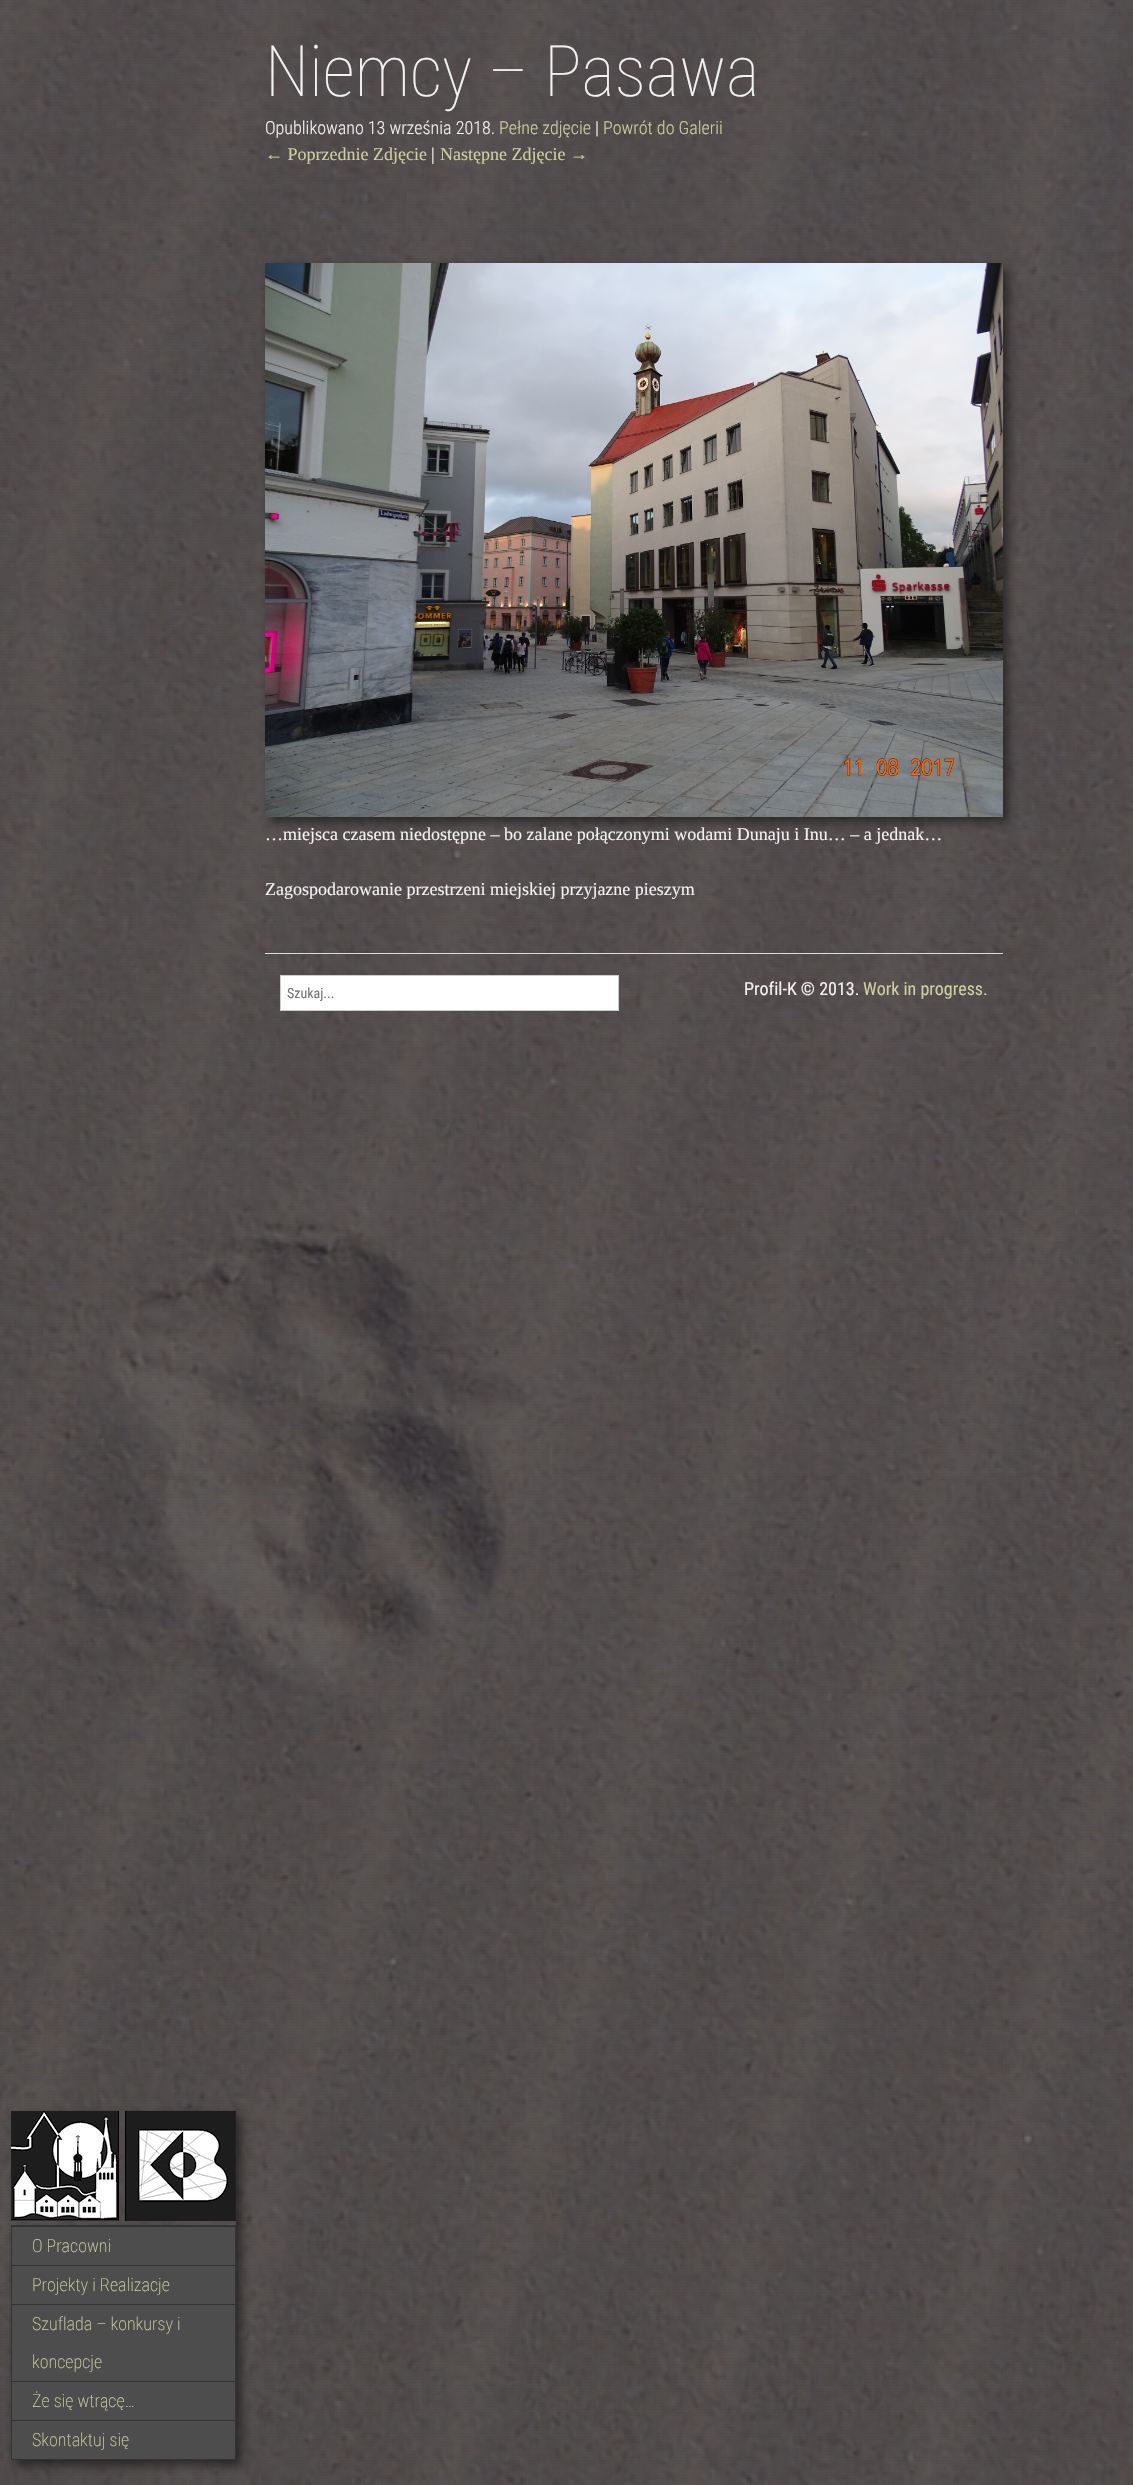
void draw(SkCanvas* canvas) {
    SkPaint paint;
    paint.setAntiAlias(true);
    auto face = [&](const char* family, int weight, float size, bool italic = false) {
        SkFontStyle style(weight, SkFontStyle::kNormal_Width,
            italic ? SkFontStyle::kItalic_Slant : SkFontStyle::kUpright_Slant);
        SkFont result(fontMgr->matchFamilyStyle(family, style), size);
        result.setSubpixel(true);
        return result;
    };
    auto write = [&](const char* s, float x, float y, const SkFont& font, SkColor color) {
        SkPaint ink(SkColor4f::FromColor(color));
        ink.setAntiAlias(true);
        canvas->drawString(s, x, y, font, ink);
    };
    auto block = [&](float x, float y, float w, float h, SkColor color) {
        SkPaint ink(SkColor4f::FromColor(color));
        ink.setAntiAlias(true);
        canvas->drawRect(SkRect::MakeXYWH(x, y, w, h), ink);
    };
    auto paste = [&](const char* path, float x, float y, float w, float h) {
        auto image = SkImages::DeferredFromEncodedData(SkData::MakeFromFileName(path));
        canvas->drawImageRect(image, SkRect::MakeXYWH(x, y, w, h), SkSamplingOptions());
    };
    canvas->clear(SK_ColorWHITE);
    paste("pic1.png", 0, 0, 1133, 2485);
    paste("pic2.png", 0, 0, 1133, 2485);
    auto kFont1 = face("Roboto Condensed", 100, 71);
    write("Niemcy – Pasawa", 265, 96, kFont1, SkColorSetRGB(242, 242, 242));
    auto kFont2 = face("Roboto Condensed", 300, 18);
    write("Opublikowano 13 września 2018.", 265, 134, kFont2, SkColorSetRGB(242, 242, 242));
    write("Pełne zdjęcie", 499, 134, kFont2, SkColorSetRGB(206, 206, 159));
    write("|", 595, 134, kFont2, SkColorSetRGB(242, 242, 242));
    write("Powrót do Galerii", 603, 134, kFont2, SkColorSetRGB(206, 206, 159));
    auto kFont3 = face("Liberation Serif", 400, 18);
    write("← Poprzednie Zdjęcie", 265, 160, kFont3, SkColorSetRGB(206, 206, 159));
    write("|", 431, 160, kFont3, SkColorSetRGB(242, 242, 242));
    write("Następne Zdjęcie →", 440, 160, kFont3, SkColorSetRGB(206, 206, 159));
    paint.setColor(SkColorSetARGB(128, 0, 0, 0));
    paint.setMaskFilter(SkMaskFilter::MakeBlur(kNormal_SkBlurStyle, 5));
    canvas->drawRect(SkRect::MakeXYWH(270, 268, 738, 554), paint);
    paint.setMaskFilter(nullptr);
    paste("pic3.png", 265, 263, 738, 554);
    write("…miejsca czasem niedostępne – bo zalane połączonymi wodami Dunaju i Inu… – a jednak…", 265, 840, kFont3, SkColorSetRGB(242, 242, 242));
    write("Zagospodarowanie przestrzeni miejskiej przyjazne pieszym", 265, 895, kFont3, SkColorSetRGB(242, 242, 242));
    block(265, 953, 738, 1, SkColorSetRGB(221, 221, 221));
    paint.setColor(SK_ColorWHITE);
    canvas->drawRect(SkRect::MakeXYWH(280.5f, 975.5f, 338, 35), paint);
    paint.setStyle(SkPaint::kStroke_Style);
    paint.setStrokeWidth(1);
    paint.setColor(SkColorSetRGB(204, 204, 204));
    canvas->drawRect(SkRect::MakeXYWH(280.5f, 975.5f, 338, 35), paint);
    auto kFont4 = face("Roboto Condensed", 400, 14);
    write("Szukaj...", 287, 998, kFont4, SkColorSetRGB(117, 117, 117));
    auto kFont5 = face("Roboto Condensed", 400, 18);
    write("Profil-K © 2013.", 744, 995, kFont5, SkColorSetRGB(242, 242, 242));
    write("Work in progress.", 863, 995, kFont5, SkColorSetRGB(206, 206, 159));
    canvas->save();
    canvas->clipPath(SkPathBuilder(SkPathFillType::kEvenOdd).moveTo(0, 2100).lineTo(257, 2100).lineTo(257, 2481).lineTo(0, 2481).close().moveTo(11, 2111).lineTo(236, 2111).lineTo(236, 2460).lineTo(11, 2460).close().detach(), true);
    paint.setStyle(SkPaint::kFill_Style);
    paint.setColor(SkColorSetARGB(128, 0, 0, 0));
    paint.setMaskFilter(SkMaskFilter::MakeBlur(kNormal_SkBlurStyle, 5));
    canvas->drawRect(SkRect::MakeXYWH(16, 2116, 225, 349), paint);
    paint.setMaskFilter(nullptr);
    canvas->restore();
    paste("pic4.png", 11, 2111, 225, 110);
    block(12, 2227, 223, 232, SkColorSetRGB(77, 77, 77));
    block(11, 2225, 225, 2, SkColorSetRGB(51, 51, 51));
    block(235, 2226, 1, 39, SkColorSetRGB(51, 51, 51));
    block(11, 2226, 1, 39, SkColorSetRGB(51, 51, 51));
    auto kFont6 = face("Roboto Condensed", 200, 18);
    write("O Pracowni", 32, 2252, kFont6, SkColorSetRGB(206, 206, 159));
    block(11, 2265, 225, 1, SkColorSetRGB(51, 51, 51));
    block(235, 2265, 1, 39, SkColorSetRGB(51, 51, 51));
    block(11, 2265, 1, 39, SkColorSetRGB(51, 51, 51));
    write("Projekty i Realizacje", 32, 2291, kFont6, SkColorSetRGB(206, 206, 159));
    block(11, 2304, 225, 1, SkColorSetRGB(51, 51, 51));
    block(235, 2304, 1, 77, SkColorSetRGB(51, 51, 51));
    block(11, 2304, 1, 77, SkColorSetRGB(51, 51, 51));
    write("Szuflada – konkursy i", 32, 2330, kFont6, SkColorSetRGB(206, 206, 159));
    write("koncepcje", 32, 2368, kFont6, SkColorSetRGB(206, 206, 159));
    block(11, 2381, 225, 1, SkColorSetRGB(51, 51, 51));
    block(235, 2381, 1, 39, SkColorSetRGB(51, 51, 51));
    block(11, 2381, 1, 39, SkColorSetRGB(51, 51, 51));
    write("Że się wtrącę…", 32, 2407, kFont6, SkColorSetRGB(206, 206, 159));
    paint.setStyle(SkPaint::kStroke_Style);
    paint.setColor(SkColorSetRGB(51, 51, 51));
    canvas->drawRect(SkRect::MakeXYWH(11.5f, 2420.5f, 224, 39), paint);
    write("Skontaktuj się", 32, 2446, kFont6, SkColorSetRGB(206, 206, 159));
}
